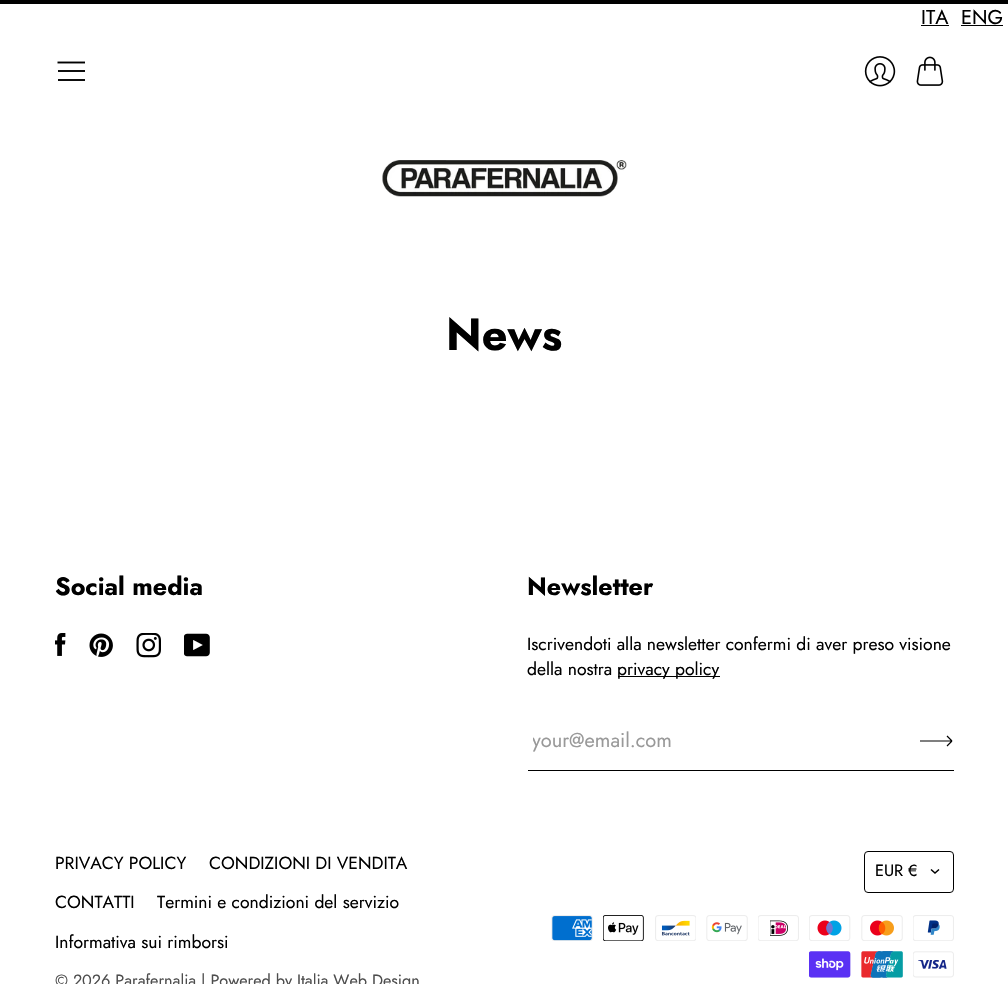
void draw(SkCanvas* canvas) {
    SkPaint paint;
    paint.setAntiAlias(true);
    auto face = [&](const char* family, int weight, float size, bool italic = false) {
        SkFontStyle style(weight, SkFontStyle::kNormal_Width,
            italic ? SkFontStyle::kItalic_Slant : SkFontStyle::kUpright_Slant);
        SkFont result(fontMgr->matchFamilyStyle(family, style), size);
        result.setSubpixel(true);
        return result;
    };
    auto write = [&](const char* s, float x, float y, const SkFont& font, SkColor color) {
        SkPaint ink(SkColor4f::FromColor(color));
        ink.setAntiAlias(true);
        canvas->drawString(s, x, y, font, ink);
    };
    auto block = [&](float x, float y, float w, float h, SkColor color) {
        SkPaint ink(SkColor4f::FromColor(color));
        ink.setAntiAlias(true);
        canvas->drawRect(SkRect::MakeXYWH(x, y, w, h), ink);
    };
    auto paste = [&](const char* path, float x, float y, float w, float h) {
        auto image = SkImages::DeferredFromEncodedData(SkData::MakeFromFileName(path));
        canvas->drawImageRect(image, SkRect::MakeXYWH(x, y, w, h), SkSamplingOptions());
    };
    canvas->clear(SK_ColorWHITE);
    block(0, 0, 1008, 4, SK_ColorBLACK);
    auto kFont1 = face("Jost", 400, 20);
    write("ITA", 921, 24, kFont1, SK_ColorBLACK);
    block(921, 25, 28, 1, SK_ColorBLACK);
    write("ENG", 961, 24, kFont1, SK_ColorBLACK);
    block(961, 25, 42, 1, SK_ColorBLACK);
    paint.setStyle(SkPaint::kStroke_Style);
    paint.setStrokeWidth(1.9f);
    paint.setColor(SK_ColorBLACK);
    canvas->drawPath(SkPathBuilder().moveTo(57.5f, 62.5f).lineTo(85, 62.5f).detach(), paint);
    block(58, 70, 27, 2, SkColorSetRGB(13, 13, 13));
    block(58, 79, 27, 2, SkColorSetRGB(13, 13, 13));
    paste("pic1.png", 864, 56, 32, 31);
    paste("pic2.png", 916, 56, 28, 30);
    paste("pic3.png", 382, 160, 245, 37);
    auto kFont2 = face("Jost", 700, 45);
    write("News", 446, 350, kFont2, SK_ColorBLACK);
    auto kFont3 = face("Jost", 700, 25);
    write("Social media", 55, 595, kFont3, SK_ColorBLACK);
    paste("pic4.png", 55, 633, 11, 23);
    paste("pic5.png", 89, 633, 24, 24);
    paste("pic6.png", 136, 633, 25, 25);
    paste("pic7.png", 184, 633, 26, 24);
    write("Newsletter", 527, 595, kFont3, SK_ColorBLACK);
    auto kFont4 = face("Jost", 400, 17.5f);
    write("Iscrivendoti alla newsletter confermi di aver preso visione", 527, 650, kFont4, SK_ColorBLACK);
    write("della nostra", 527, 675, kFont4, SK_ColorBLACK);
    block(618, 676, 102, 1, SK_ColorBLACK);
    write("privacy policy", 617, 675, kFont4, SK_ColorBLACK);
    block(528, 770, 426, 1, SK_ColorBLACK);
    canvas->save();
    canvas->clipRect(SkRect::MakeXYWH(533, 725, 342, 29));
    write("your@email.com", 532, 747, kFont1, SkColorSetRGB(153, 153, 153));
    canvas->restore();
    paint.setStrokeWidth(1.2f);
    canvas->drawPath(SkPathBuilder().moveTo(920, 741).lineTo(952, 741).moveTo(952, 741).lineTo(947, 736).moveTo(952, 741).lineTo(947, 746).detach(), paint);
    write("PRIVACY POLICY", 55, 869, kFont4, SK_ColorBLACK);
    write("CONDIZIONI DI VENDITA", 209, 869, kFont4, SK_ColorBLACK);
    write("CONTATTI", 55, 908, kFont4, SK_ColorBLACK);
    write("Termini e condizioni del servizio", 157, 908, kFont4, SK_ColorBLACK);
    write("Informativa sui rimborsi", 55, 948, kFont4, SK_ColorBLACK);
    auto kFont5 = face("Jost", 400, 16.25f);
    write("© 2026 Parafernalia | Powered by Italia Web Design", 55, 986, kFont5, SkColorSetRGB(77, 77, 77));
    paint.setStrokeWidth(1);
    canvas->drawRoundRect(SkRect::MakeXYWH(864.5f, 851.5f, 89, 41), 3.5f, 3.5f, paint);
    write("EUR €", 875, 876, kFont5, SK_ColorBLACK);
    paint.setStrokeWidth(1.5f);
    canvas->drawPath(SkPathBuilder().moveTo(931, 869.5f).lineTo(935, 873).lineTo(939, 869.5f).detach(), paint);
    paste("pic8.png", 551, 915, 42, 26);
    paste("pic9.png", 603, 915, 41, 26);
    paste("pic10.png", 655, 915, 41, 26);
    paste("pic11.png", 706, 915, 42, 26);
    paste("pic12.png", 758, 915, 41, 26);
    paste("pic13.png", 809, 915, 42, 26);
    paste("pic14.png", 861, 915, 42, 26);
    paste("pic15.png", 913, 915, 41, 26);
    paste("pic16.png", 809, 951, 42, 27);
    paste("pic17.png", 861, 951, 42, 27);
    paste("pic18.png", 913, 951, 41, 27);
}
